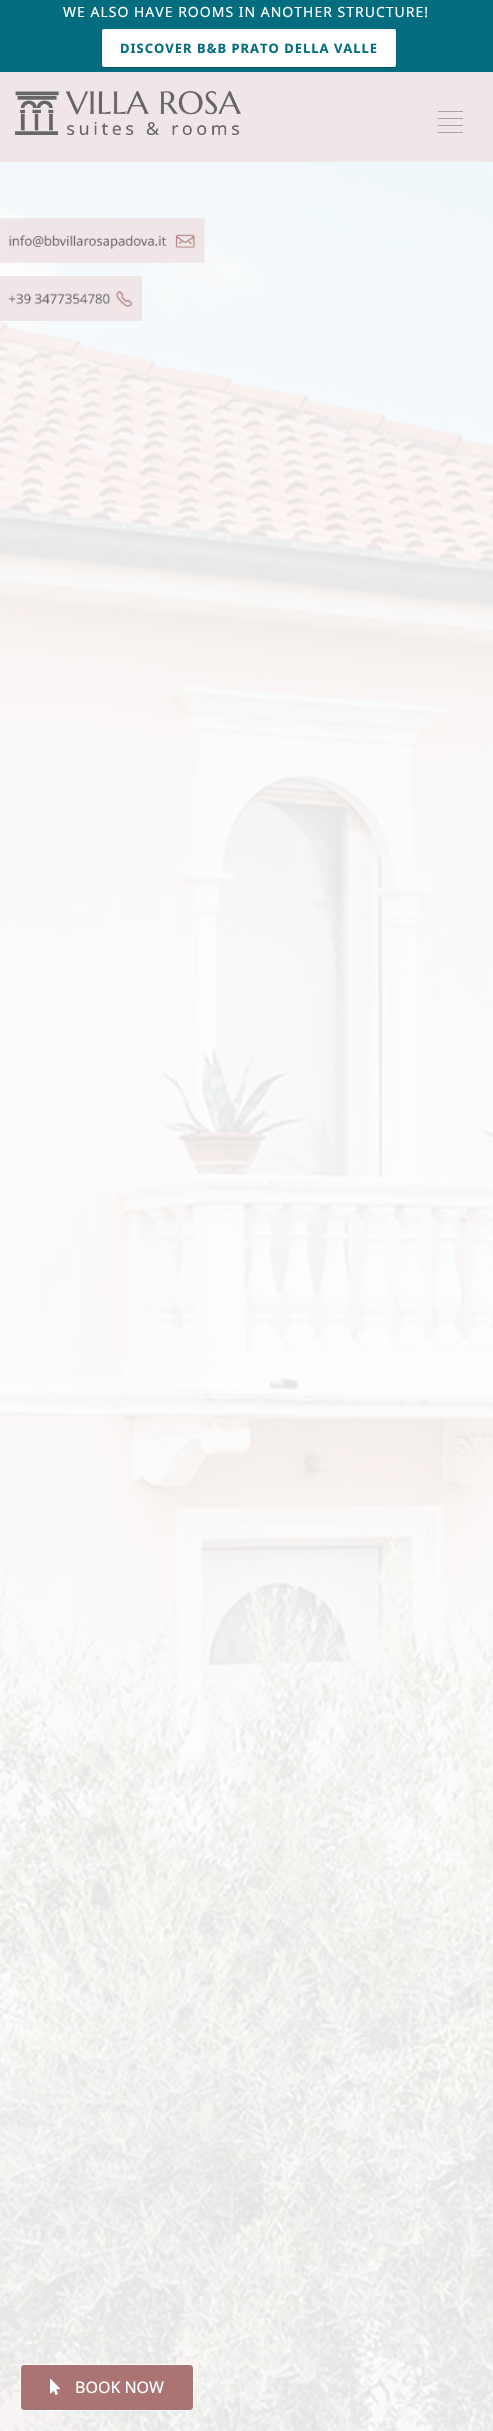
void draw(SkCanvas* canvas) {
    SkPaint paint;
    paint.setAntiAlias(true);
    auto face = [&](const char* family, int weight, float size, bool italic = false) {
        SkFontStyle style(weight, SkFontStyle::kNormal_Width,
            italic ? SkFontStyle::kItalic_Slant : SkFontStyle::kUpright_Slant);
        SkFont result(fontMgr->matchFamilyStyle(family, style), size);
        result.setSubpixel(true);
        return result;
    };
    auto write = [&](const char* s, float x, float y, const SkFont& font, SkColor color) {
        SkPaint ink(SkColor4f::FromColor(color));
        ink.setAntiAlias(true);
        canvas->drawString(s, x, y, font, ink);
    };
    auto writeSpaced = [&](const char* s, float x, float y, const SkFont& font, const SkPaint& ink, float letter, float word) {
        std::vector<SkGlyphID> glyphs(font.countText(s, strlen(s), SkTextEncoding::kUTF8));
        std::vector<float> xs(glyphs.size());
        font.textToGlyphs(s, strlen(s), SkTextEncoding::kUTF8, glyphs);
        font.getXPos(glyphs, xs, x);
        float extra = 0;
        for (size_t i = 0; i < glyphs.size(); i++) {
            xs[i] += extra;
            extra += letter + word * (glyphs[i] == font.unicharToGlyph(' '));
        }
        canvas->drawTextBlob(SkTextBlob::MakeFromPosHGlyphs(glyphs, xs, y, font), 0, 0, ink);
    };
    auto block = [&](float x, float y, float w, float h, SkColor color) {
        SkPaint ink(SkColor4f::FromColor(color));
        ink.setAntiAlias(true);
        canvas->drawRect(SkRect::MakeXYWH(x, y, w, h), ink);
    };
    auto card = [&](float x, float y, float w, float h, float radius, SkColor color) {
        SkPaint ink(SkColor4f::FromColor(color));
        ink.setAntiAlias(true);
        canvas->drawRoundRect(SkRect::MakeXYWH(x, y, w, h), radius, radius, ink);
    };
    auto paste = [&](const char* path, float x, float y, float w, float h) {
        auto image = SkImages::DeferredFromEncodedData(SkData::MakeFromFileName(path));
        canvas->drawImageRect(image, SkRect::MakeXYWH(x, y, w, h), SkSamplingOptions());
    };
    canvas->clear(SK_ColorWHITE);
    block(0, 0, 493, 72, SkColorSetRGB(4, 108, 127));
    auto kFont1 = face("Noto Sans", 400, 14);
    paint.setColor(SK_ColorWHITE);
    writeSpaced("WE ALSO HAVE ROOMS IN ANOTHER STRUCTURE!", 63, 17, kFont1, paint, 1, 0);
    paint.setColor(SkColorSetARGB(51, 0, 0, 0));
    paint.setMaskFilter(SkMaskFilter::MakeBlur(kNormal_SkBlurStyle, 1));
    canvas->drawRoundRect(SkRect::MakeXYWH(102, 30, 294, 38), 2, 2, paint);
    paint.setMaskFilter(nullptr);
    card(102, 29, 294, 38, 2, SK_ColorWHITE);
    auto kFont2 = face("Noto Sans", 700, 13);
    paint.setColor(SkColorSetRGB(4, 108, 127));
    writeSpaced("DISCOVER B&B PRATO DELLA VALLE", 120, 53, kFont2, paint, 1, 0);
    block(0, 72, 493, 90, SkColorSetRGB(240, 230, 231));
    paste("pic1.png", 15, 91, 226, 44);
    block(438, 111, 25, 1, SkColorSetRGB(163, 163, 163));
    block(438, 118, 25, 1, SkColorSetRGB(163, 163, 163));
    block(438, 125, 25, 1, SkColorSetRGB(163, 163, 163));
    block(438, 132, 25, 1, SkColorSetRGB(163, 163, 163));
    paste("pic2.png", 0, 162, 493, 2269);
    paste("pic3.png", 0, 218, 205, 45);
    paste("pic4.png", 0, 276, 142, 45);
    paint.setColor(SkColorSetRGB(170, 116, 116));
    canvas->drawRoundRect(SkRect::MakeXYWH(20.5f, 2364.5f, 173, 46), 3.5f, 3.5f, paint);
    paint.setStyle(SkPaint::kStroke_Style);
    paint.setStrokeWidth(1);
    paint.setColor(SK_ColorWHITE);
    canvas->drawRoundRect(SkRect::MakeXYWH(20.5f, 2364.5f, 173, 46), 3.5f, 3.5f, paint);
    paste("pic5.png", 50, 2379, 10, 16);
    auto kFont3 = face("Noto Sans", 400, 16);
    write("BOOK NOW", 75, 2393, kFont3, SK_ColorWHITE);
}
